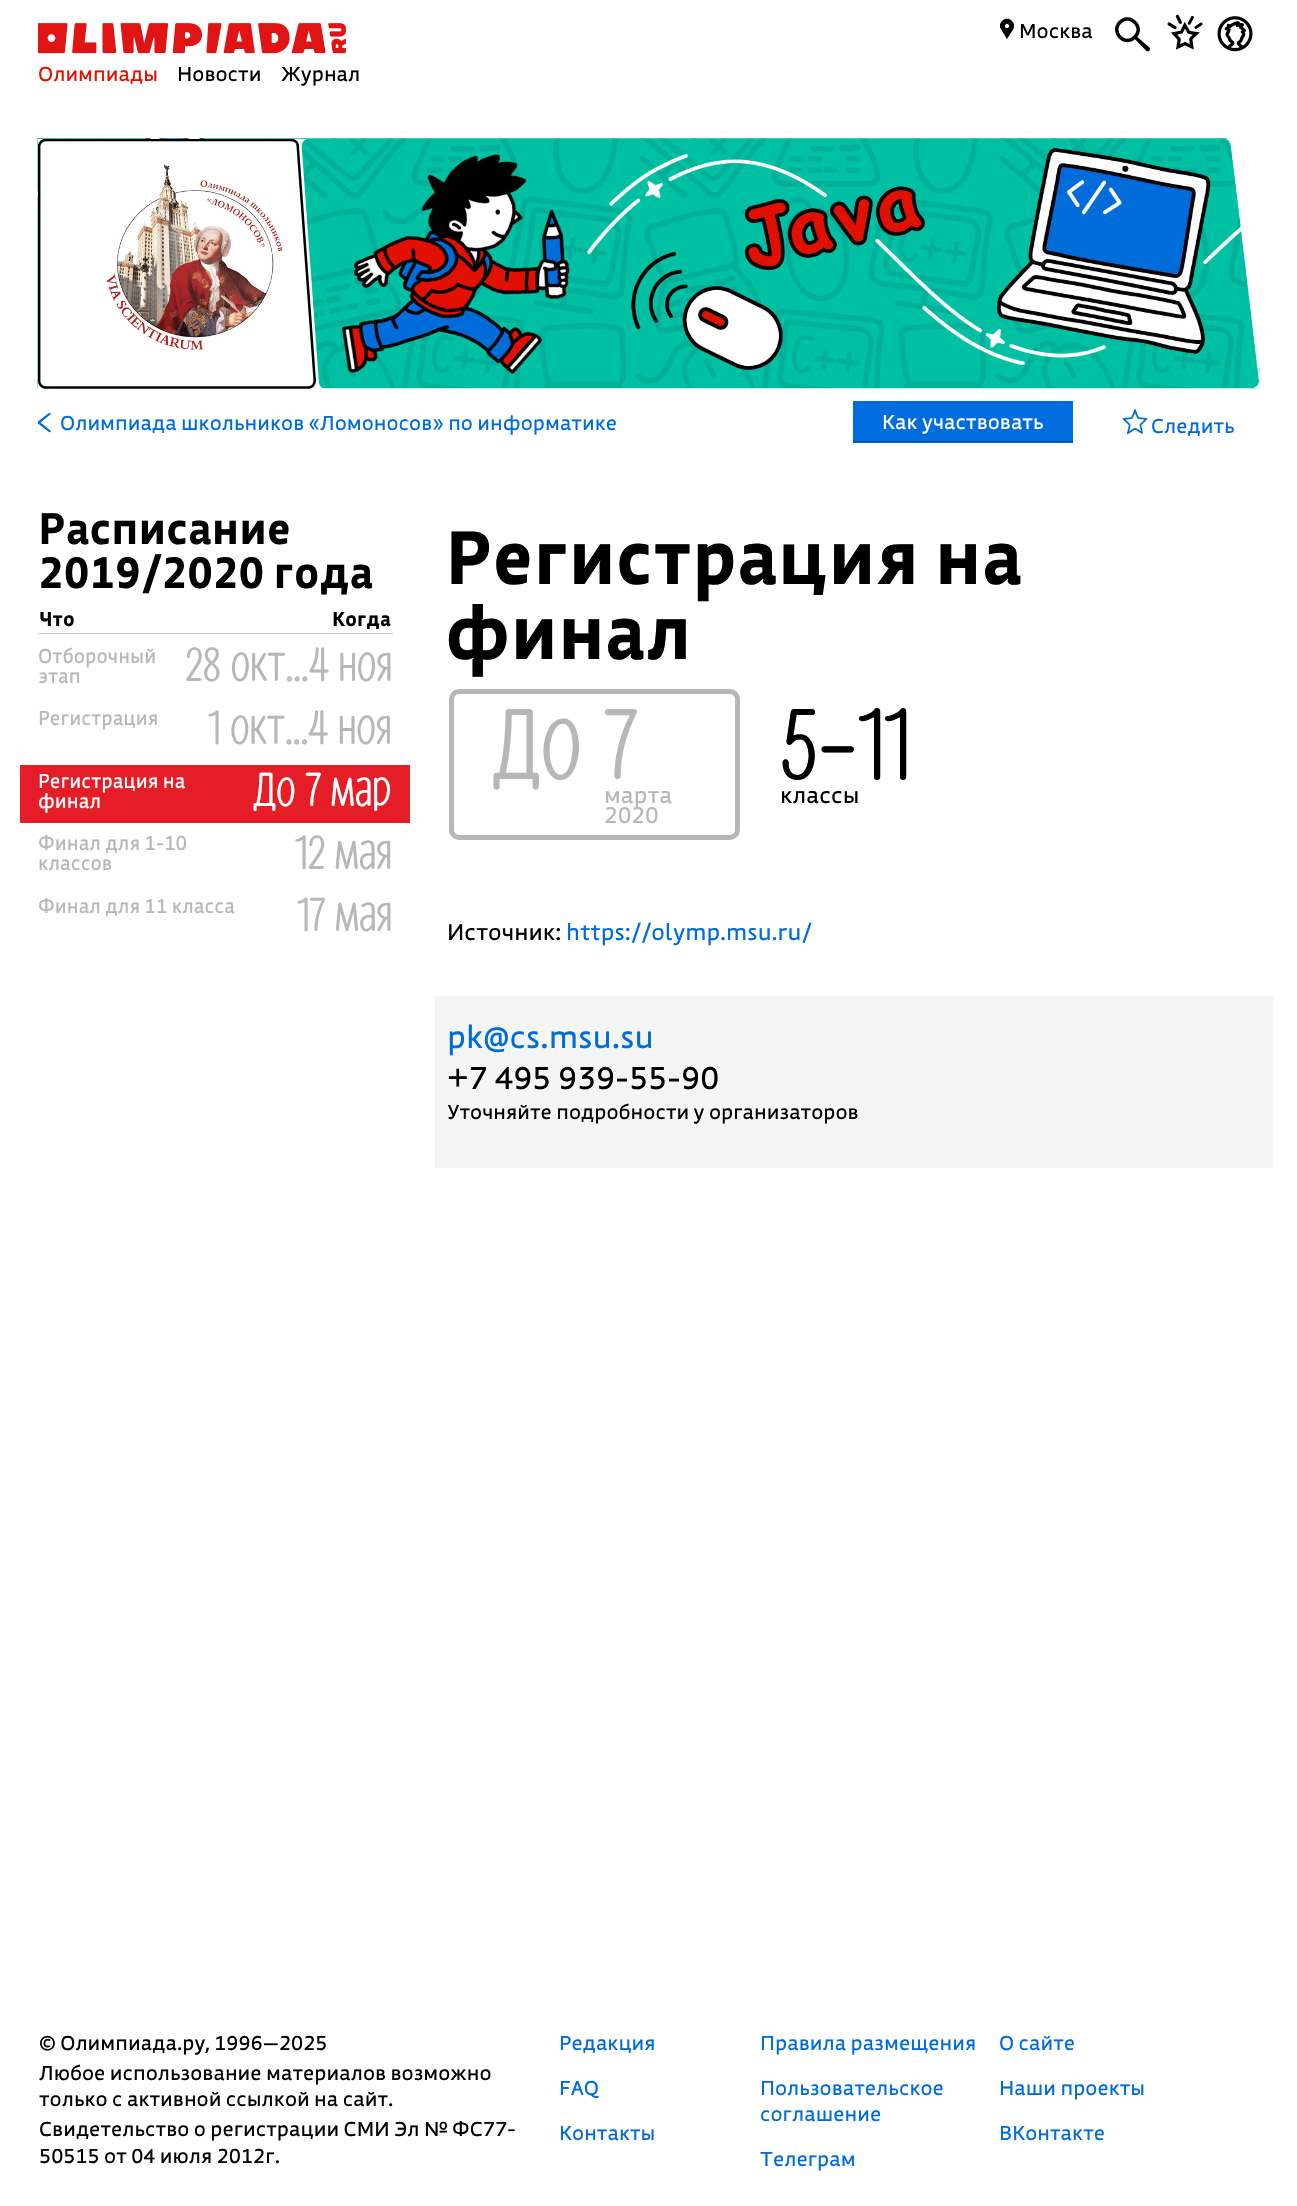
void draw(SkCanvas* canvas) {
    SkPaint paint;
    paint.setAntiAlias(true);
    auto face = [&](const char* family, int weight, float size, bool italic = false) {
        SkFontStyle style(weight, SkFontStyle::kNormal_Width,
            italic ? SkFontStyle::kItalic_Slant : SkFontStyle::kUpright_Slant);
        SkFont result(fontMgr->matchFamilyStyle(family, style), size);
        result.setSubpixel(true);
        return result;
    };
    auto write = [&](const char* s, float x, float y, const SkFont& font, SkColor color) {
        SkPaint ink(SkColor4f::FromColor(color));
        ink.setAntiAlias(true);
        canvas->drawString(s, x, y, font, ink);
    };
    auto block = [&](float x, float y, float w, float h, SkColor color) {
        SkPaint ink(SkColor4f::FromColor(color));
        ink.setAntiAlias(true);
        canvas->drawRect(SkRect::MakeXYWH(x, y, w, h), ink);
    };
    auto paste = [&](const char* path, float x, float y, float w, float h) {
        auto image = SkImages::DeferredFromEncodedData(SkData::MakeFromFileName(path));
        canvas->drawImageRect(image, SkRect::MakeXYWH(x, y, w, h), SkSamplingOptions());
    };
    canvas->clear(SK_ColorWHITE);
    paste("pic1.png", 38, 23, 308, 31);
    paste("pic2.png", 1000, 18, 14, 21);
    auto kFont1 = face("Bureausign", 400, 20);
    write("Москва", 1019, 38, kFont1, SK_ColorBLACK);
    paste("pic3.png", 1115, 17, 35, 35);
    paste("pic4.png", 1167, 14, 36, 36);
    paste("pic5.png", 1217, 16, 36, 36);
    write("Олимпиады", 38, 81, kFont1, SkColorSetRGB(225, 16, 0));
    write("Новости", 177, 81, kFont1, SK_ColorBLACK);
    write("Журнал", 281, 81, kFont1, SK_ColorBLACK);
    paste("pic6.png", 37, 138, 1223, 251);
    paste("pic7.png", 38, 139, 287, 250);
    paste("pic8.png", 105, 164, 179, 188);
    paste("pic9.png", 1224, 138, 36, 251);
    paste("pic10.png", 1227, 138, 33, 251);
    canvas->save();
    canvas->clipRect(SkRect::MakeXYWH(38, 413, 20, 20));
    paint.setColor(SkColorSetRGB(0, 108, 217));
    canvas->drawPath(SkPathBuilder().moveTo(37.5f, 423).lineTo(49.5f, 432.5f).lineTo(51, 431).lineTo(40.5f, 422.5f).lineTo(51, 414).lineTo(49.5f, 412.5f).lineTo(37.5f, 422).close().detach(), paint);
    canvas->restore();
    write("Олимпиада школьников «Ломоносов» по информатике", 60, 430, kFont1, SkColorSetRGB(0, 108, 217));
    block(853, 401, 220, 42, SkColorSetRGB(0, 108, 221));
    block(853, 441, 220, 1, SkColorSetRGB(1, 74, 151));
    write("Как участвовать", 882, 429, kFont1, SK_ColorWHITE);
    paste("pic11.png", 1122, 409, 26, 25);
    write("Следить", 1151, 433, kFont1, SkColorSetRGB(0, 108, 217));
    auto kFont2 = face("Bureausign", 700, 43.75f);
    write("Расписание", 38, 544, kFont2, SK_ColorBLACK);
    write("2019/2020 года", 38, 588, kFont2, SK_ColorBLACK);
    auto kFont3 = face("Bureausign", 700, 20);
    write("Что", 39, 626, kFont3, SK_ColorBLACK);
    block(38, 633, 355, 1, SkColorSetRGB(204, 204, 204));
    write("Когда", 332, 626, kFont3, SK_ColorBLACK);
    auto kFont4 = face("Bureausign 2", 400, 20);
    write("Отборочный", 38, 663, kFont4, SkColorSetRGB(183, 183, 183));
    write("этап", 38, 683, kFont4, SkColorSetRGB(183, 183, 183));
    auto kFont5 = face("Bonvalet", 400, 47.5f);
    write("28 окт...4 ноя", 185, 681, kFont5, SkColorSetRGB(183, 183, 183));
    write("Регистрация", 38, 725, kFont4, SkColorSetRGB(183, 183, 183));
    write("1 окт...4 ноя", 208, 744, kFont5, SkColorSetRGB(183, 183, 183));
    block(20, 765, 390, 58, SkColorSetRGB(229, 29, 38));
    write("Регистрация на", 38, 788, kFont4, SK_ColorWHITE);
    write("финал", 38, 808, kFont4, SK_ColorWHITE);
    write("До 7 мар", 253, 806, kFont5, SK_ColorWHITE);
    write("Финал для 1-10", 38, 850, kFont4, SkColorSetRGB(183, 183, 183));
    write("классов", 38, 870, kFont4, SkColorSetRGB(183, 183, 183));
    write("12 мая", 295, 869, kFont5, SkColorSetRGB(183, 183, 183));
    write("Финал для 11 класса", 38, 913, kFont4, SkColorSetRGB(183, 183, 183));
    write("17 мая", 297, 931, kFont5, SkColorSetRGB(183, 183, 183));
    auto kFont6 = face("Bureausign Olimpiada", 400, 75);
    write("Регистрация на", 445, 584, kFont6, SK_ColorBLACK);
    write("финал", 445, 659, kFont6, SK_ColorBLACK);
    paint.setStyle(SkPaint::kStroke_Style);
    paint.setStrokeWidth(5);
    paint.setColor(SkColorSetRGB(183, 183, 183));
    canvas->drawRoundRect(SkRect::MakeXYWH(451.5f, 691.5f, 286, 146), 7.5f, 7.5f, paint);
    auto kFont7 = face("Bonvalet", 400, 100);
    write("До", 492, 779, kFont7, SkColorSetRGB(183, 183, 183));
    write("7", 604, 779, kFont7, SkColorSetRGB(183, 183, 183));
    auto kFont8 = face("Bureausign", 400, 22.5f);
    write("марта", 604, 803, kFont8, SkColorSetRGB(183, 183, 183));
    write("2020", 604, 823, kFont8, SkColorSetRGB(183, 183, 183));
    write("5–11", 780, 779, kFont7, SK_ColorBLACK);
    write("классы", 780, 803, kFont8, SK_ColorBLACK);
    write("Источник:", 447, 940, kFont8, SK_ColorBLACK);
    write("https://olymp.msu.ru/", 566, 940, kFont8, SkColorSetRGB(0, 108, 217));
    block(435, 996, 838, 172, SkColorSetRGB(245, 245, 245));
    auto kFont9 = face("Bureausign", 400, 31.25f);
    write("pk@cs.msu.su", 447, 1048, kFont9, SkColorSetRGB(0, 108, 217));
    write("+7 495 939-55-90", 447, 1089, kFont9, SK_ColorBLACK);
    write("Уточняйте подробности у организаторов", 447, 1119, kFont1, SK_ColorBLACK);
    write("© Олимпиада.ру, 1996—2025", 39, 2050, kFont1, SK_ColorBLACK);
    write("Любое использование материалов возможно", 39, 2080, kFont1, SK_ColorBLACK);
    write("только с активной ссылкой на сайт.", 39, 2106, kFont1, SK_ColorBLACK);
    write("Свидетельство о регистрации СМИ Эл № ФС77-", 39, 2136, kFont1, SK_ColorBLACK);
    write("50515 от 04 июля 2012г.", 39, 2163, kFont1, SK_ColorBLACK);
    write("Редакция", 559, 2050, kFont1, SkColorSetRGB(0, 108, 217));
    write("FAQ", 559, 2095, kFont1, SkColorSetRGB(0, 108, 217));
    write("Контакты", 559, 2140, kFont1, SkColorSetRGB(0, 108, 217));
    write("Правила размещения", 760, 2050, kFont1, SkColorSetRGB(0, 108, 217));
    write("Пользовательское", 760, 2095, kFont1, SkColorSetRGB(0, 108, 217));
    write("соглашение", 760, 2121, kFont1, SkColorSetRGB(0, 108, 217));
    write("Телеграм", 760, 2166, kFont1, SkColorSetRGB(0, 108, 217));
    write("О сайте", 999, 2050, kFont1, SkColorSetRGB(0, 108, 217));
    write("Наши проекты", 999, 2095, kFont1, SkColorSetRGB(0, 108, 217));
    write("ВКонтакте", 999, 2140, kFont1, SkColorSetRGB(0, 108, 217));
}
